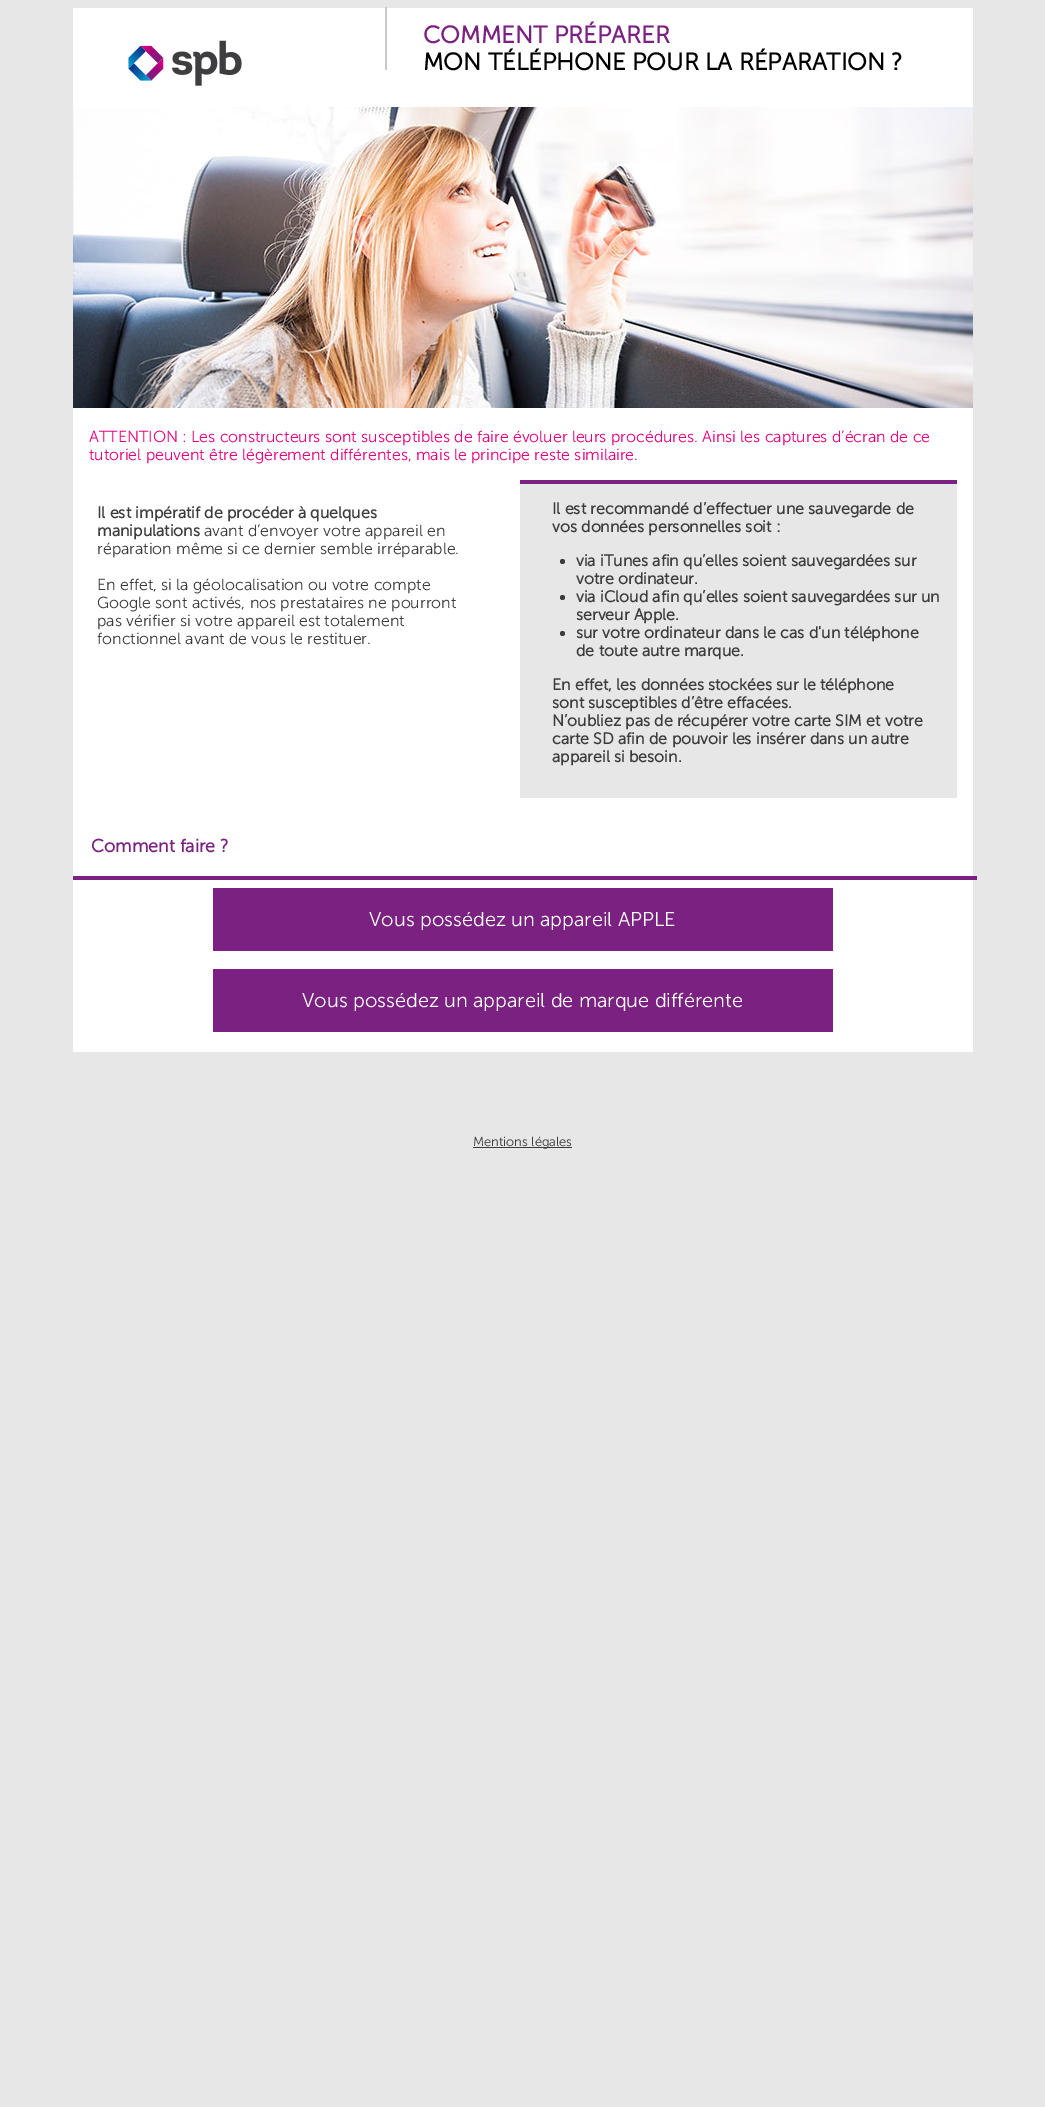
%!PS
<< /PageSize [1045 2107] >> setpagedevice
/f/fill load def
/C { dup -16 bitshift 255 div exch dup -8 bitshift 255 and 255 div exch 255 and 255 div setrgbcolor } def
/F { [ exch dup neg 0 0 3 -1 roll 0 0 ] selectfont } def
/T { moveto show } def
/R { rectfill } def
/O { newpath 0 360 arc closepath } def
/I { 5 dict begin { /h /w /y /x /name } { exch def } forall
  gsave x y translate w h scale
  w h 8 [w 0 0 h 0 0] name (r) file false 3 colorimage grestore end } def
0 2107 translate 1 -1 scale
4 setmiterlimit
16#E7E7E7 C
0 0 1045 2107 R
16#FFFFFF C
73 8 900 1044 R
(1.rgb) 128 40 114 46 I
16#C9C9C9 C
385 7 2 63 R
/MuseoSans-Bold 24 F
16#7B2182 C
(COMMENT PRÉPARER) 423 43 T
16#000000 C
(MON TÉLÉPHONE POUR LA RÉPARATION ?) 423 70 T
(2.rgb) 73 107 900 301 I
/MuseoSans-Light 16 F
16#E6007E C
(ATTENTION : Les constructeurs sont susceptibles de faire évoluer leurs procédures. Ainsi les captures d’écran de ce) 89 442 T
(tutoriel peuvent être légèrement différentes, mais le principe reste similaire.) 89 460 T
/MuseoSans-Bold 16 F
16#3C3C3C C
(Il est impératif de procéder à quelques) 97 518 T
(manipulations) 97 536 T
/MuseoSans-Light 16 F
(avant d’envoyer votre appareil en) 204 536 T
(réparation même si ce dernier semble irréparable.) 97 554 T
(En effet, si la géolocalisation ou votre compte) 97 590 T
(Google sont activés, nos prestataires ne pourront) 97 608 T
(pas vérifier si votre appareil est totalement) 97 626 T
(fonctionnel avant de vous le restituer.) 97 644 T
16#E7E7E7 C
520 484 437 314 R
16#7B2182 C
520 480 437 4 R
/MuseoSans-Bold 16 F
16#3C3C3C C
(Il est recommandé d’effectuer une sauvegarde de) 552 514 T
(vos données personnelles soit :) 552 532 T
562.5 561.5 2.5 O f
(via iTunes afin qu’elles soient sauvegardées sur) 576 566 T
(votre ordinateur.) 576 584 T
562.5 597.5 2.5 O f
(via iCloud afin qu’elles soient sauvegardées sur un) 576 602 T
(serveur Apple.) 576 620 T
562.5 633.5 2.5 O f
(sur votre ordinateur dans le cas d'un téléphone) 576 638 T
(de toute autre marque.) 576 656 T
(En effet, les données stockées sur le téléphone) 552 690 T
(sont susceptibles d’être effacées.) 552 708 T
(N’oubliez pas de récupérer votre carte SIM et votre) 552 726 T
(carte SD afin de pouvoir les insérer dans un autre) 552 744 T
(appareil si besoin.) 552 762 T
/MuseoSans-Bold 18 F
16#7B2182 C
(Comment faire ?) 91 852 T
73 876 904 4 R
213 888 620 63 R
/MuseoSans-Light 20 F
16#FFFFFF C
(Vous possédez un appareil APPLE) 369 926 T
16#7B2182 C
213 969 620 63 R
16#FFFFFF C
(Vous possédez un appareil de marque différente) 302 1007 T
16#3C3C3C C
473 1147 99 1 R
/MuseoSans-Light 13 F
(Mentions légales) 473 1146 T
showpage
